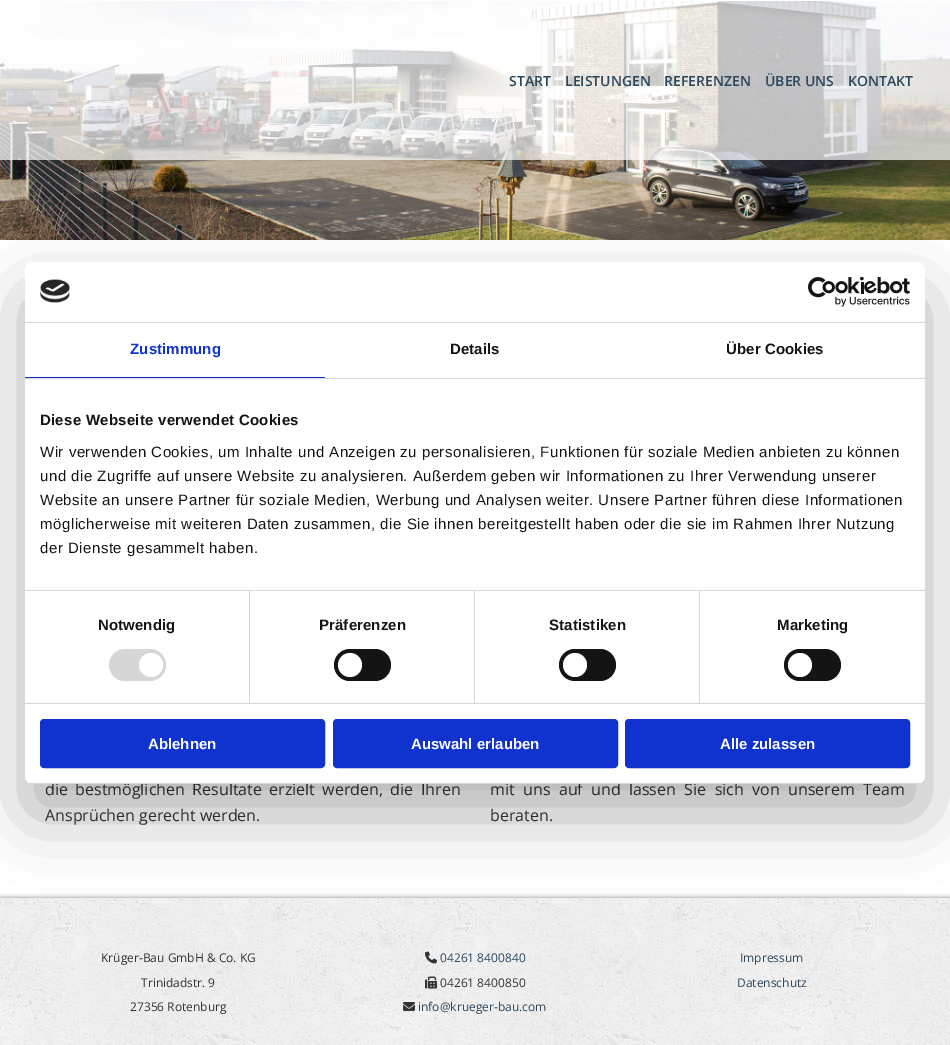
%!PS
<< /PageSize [950 1045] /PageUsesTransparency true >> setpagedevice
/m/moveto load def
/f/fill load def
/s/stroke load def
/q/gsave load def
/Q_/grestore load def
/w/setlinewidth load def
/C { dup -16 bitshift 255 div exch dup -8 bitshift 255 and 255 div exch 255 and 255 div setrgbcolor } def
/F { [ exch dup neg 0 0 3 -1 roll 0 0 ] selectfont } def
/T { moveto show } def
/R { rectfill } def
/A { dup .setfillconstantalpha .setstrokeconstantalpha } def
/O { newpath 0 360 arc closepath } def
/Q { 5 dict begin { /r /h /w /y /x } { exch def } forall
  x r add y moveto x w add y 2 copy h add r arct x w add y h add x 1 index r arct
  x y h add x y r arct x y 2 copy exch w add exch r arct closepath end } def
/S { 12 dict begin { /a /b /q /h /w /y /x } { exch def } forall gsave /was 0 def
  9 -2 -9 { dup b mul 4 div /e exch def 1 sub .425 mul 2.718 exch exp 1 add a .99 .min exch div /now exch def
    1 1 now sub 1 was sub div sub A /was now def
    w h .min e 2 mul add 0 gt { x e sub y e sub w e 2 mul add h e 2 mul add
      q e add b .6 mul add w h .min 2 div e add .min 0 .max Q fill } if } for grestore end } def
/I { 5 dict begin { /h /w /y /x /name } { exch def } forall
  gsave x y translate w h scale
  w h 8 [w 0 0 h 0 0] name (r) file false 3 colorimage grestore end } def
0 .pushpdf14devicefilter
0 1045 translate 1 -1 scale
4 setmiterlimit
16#FFFFFF C
0 0 950 1045 R
(1.rgb) 0 1 950 239 I
0.7 A
0 1 950 159 R
/OpenSans-SemiBold 14 F
1 A
16#2A475E C
(START) 509 86 T
(LEISTUNGEN) 565 86 T
(REFERENZEN) 664 86 T
(ÜBER UNS) 765 86 T
(KONTAKT) 848 86 T
/OpenSans-Regular 16 F
16#333333 C
45 795 m 3.25 0 32 (die bestmöglichen Resultate erzielt werden, die Ihren) widthshow
(Ansprüchen gerecht werden.) 45 821 T
490 795 m 4.25 0 32 (mit uns auf und lassen Sie sich von unserem Team) widthshow
(beraten.) 490 821 T
16#878787 C
0 898 950 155 0 2.5 1 S
(2.rgb) 0 898 950 147 I
/OpenSans-Regular 12 F
16#333333 C
(Krüger-Bau GmbH & Co. KG) 101 962 T
(Trinidadstr. 9) 141 987 T
(27356 Rotenburg) 130 1011 T
(3.rgb) 425 951 12 13 I
16#2A475E C
(04261 8400840) 440 962 T
(4.rgb) 425 976 12 13 I
16#333333 C
(04261 8400850) 440 987 T
(5.rgb) 403 1002 12 9 I
16#2A475E C
(info@krueger-bau.com) 418 1011 T
(Impressum) 740 962 T
(Datenschutz) 737 987 T
16#000000 C
25 294 900 522 8 34 .3 S
16#FFFFFF C
25 262 900 522 8 Q f
16#D6D6D6 C
25 322 900 1 R
(6.rgb) 40 279 30 24 I
(7.rgb) 808 277 102 30 I
25 378 900 1 R
16#1032CF C
25 377 300 1 R
/LiberationSans-Bold 15 F
130 354 m .1 0 (Zustimmung) ashow
16#141414 C
450 354 m .1 0 (Details) ashow
726 354 m .1 0 (Über Cookies) ashow
16#D6D6D6 C
25 590 900 1 R
16#141414 C
40 425 m .25 0 (Diese Webseite verwendet Cookies) ashow
/LiberationSans-Regular 15 F
40 457 m .5 0 (Wir verwenden Cookies, um Inhalte und Anzeigen zu personalisieren, Funktionen für soziale Medien anbieten zu können) ashow
40 481 m .5 0 (und die Zugriffe auf unsere Website zu analysieren. Außerdem geben wir Informationen zu Ihrer Verwendung unserer) ashow
40 505 m .5 0 (Website an unsere Partner für soziale Medien, Werbung und Analysen weiter. Unsere Partner führen diese Informationen) ashow
40 529 m .5 0 (möglicherweise mit weiteren Daten zusammen, die Sie ihnen bereitgestellt haben oder die sie im Rahmen Ihrer Nutzung) ashow
40 553 m .5 0 (der Dienste gesammelt haben.) ashow
16#D6D6D6 C
25 703 900 1 R
249 591 1 112 R
/LiberationSans-Bold 15 F
16#141414 C
98 630 m .1 0 (Notwendig) ashow
16#D6D6D6 C
109 649 57 32 16 Q f
16#FFFFFF C
151 665 12 O f
16#D6D6D6 C
474 591 1 112 R
16#141414 C
319 630 m .1 0 (Präferenzen) ashow
334 649 57 32 16 Q f
16#FFFFFF C
350 665 12 O f
16#D6D6D6 C
699 591 1 112 R
16#141414 C
549 630 m .1 0 (Statistiken) ashow
559 649 57 32 16 Q f
16#FFFFFF C
575 665 12 O f
16#141414 C
777 630 m .1 0 (Marketing) ashow
784 649 57 32 16 Q f
16#FFFFFF C
800 665 12 O f
q
25 262 900 522 8 Q clip newpath
16#D6D6D6 C
25 783 900 1 R
Q_
16#1032CF C
41 720 283 47 3 Q q f Q_
2 w
s
16#FFFFFF C
(Ablehnen) 148 749 T
16#1032CF C
334 720 283 47 3 Q q f Q_
s
16#FFFFFF C
(Auswahl erlauben) 411 749 T
16#1032CF C
626 720 283 47 3 Q q f Q_
s
16#FFFFFF C
(Alle zulassen) 720 749 T
.poppdf14devicefilter showpage
